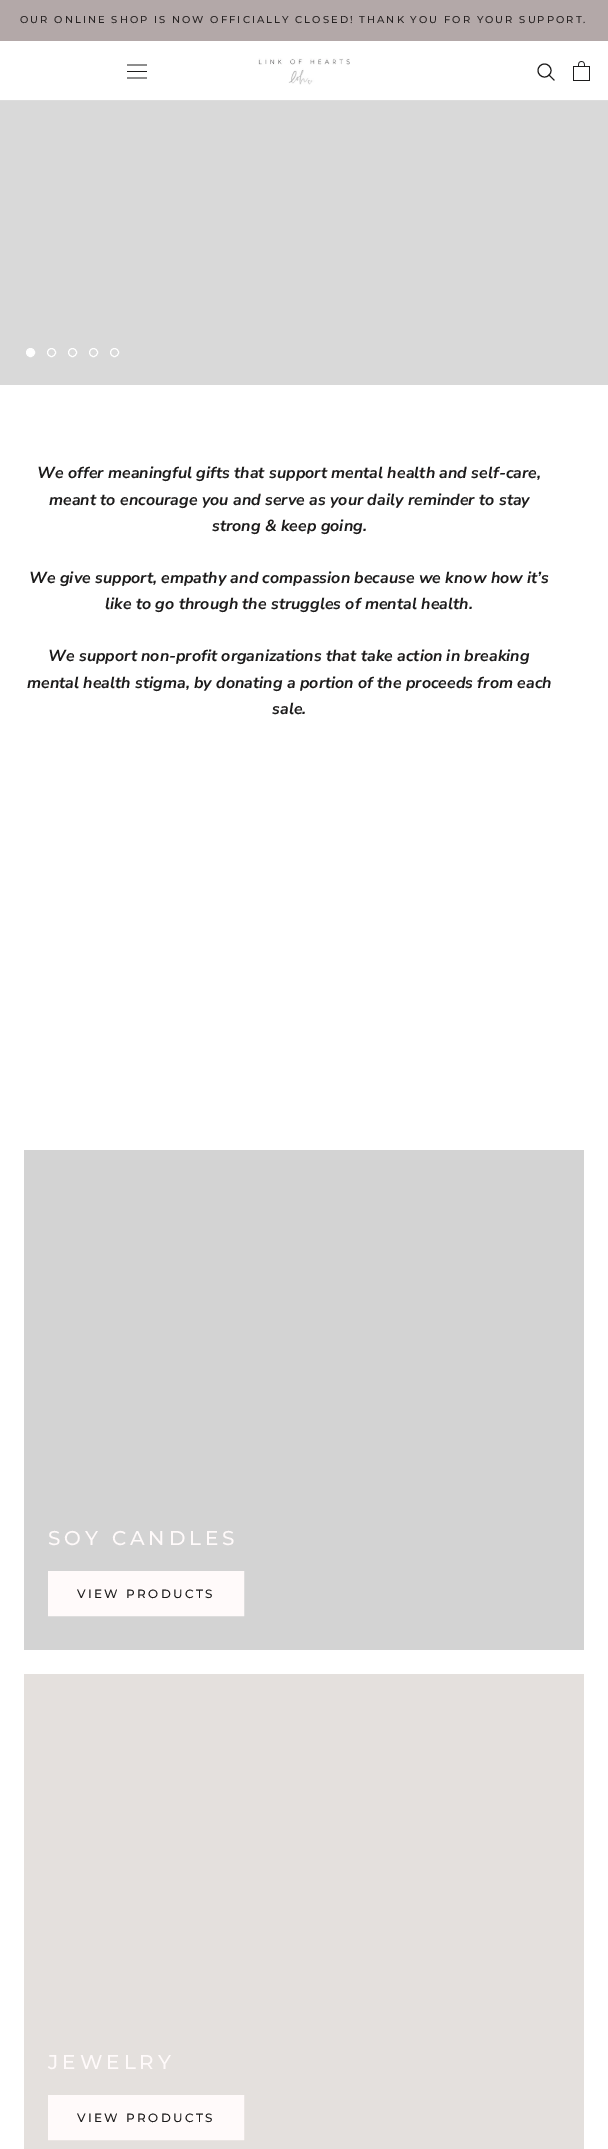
%!PS
<< /PageSize [608 2149] >> setpagedevice
/m/moveto load def
/l/rlineto load def
/f/fill load def
/s/stroke load def
/q/gsave load def
/Q_/grestore load def
/C { dup -16 bitshift 255 div exch dup -8 bitshift 255 and 255 div exch 255 and 255 div setrgbcolor } def
/F { [ exch dup neg 0 0 3 -1 roll 0 0 ] selectfont } def
/T { moveto show } def
/R { rectfill } def
/O { newpath 0 360 arc closepath } def
/I { 5 dict begin { /h /w /y /x /name } { exch def } forall
  gsave x y translate w h scale
  w h 8 [w 0 0 h 0 0] name (r) file false 3 colorimage grestore end } def
0 2149 translate 1 -1 scale
4 setmiterlimit
16#FFFFFF C
0 0 608 2149 R
16#B3A8A8 C
0 0 608 41 R
/Montserrat-Medium 10 F
16#262222 C
20 23 m 2 0 (OUR ONLINE SHOP IS NOW OFFICIALLY CLOSED! THANK YOU FOR YOUR SUPPORT.) ashow
16#DDDDDD C
0 100 608 1 R
(1.rgb) 127 64 20 15 I
(2.rgb) 258 58 92 27 I
16#1C1B1B C
2 setlinecap
554 80 m -5 -5 l s
0 setlinecap
544.5 70.5 6.5 O s
(3.rgb) 573 61 17 20 I
16#D9D9D9 C
0 101 608 284 R
16#FFFFFF C
30.5 352.5 4 O q f Q_
s
51.5 352.5 4 O s
72.5 352.5 4 O s
93.5 352.5 4 O s
114.5 352.5 4 O s
/NunitoSans-BoldItalic 16 F
16#1C1B1B C
(We offer meaningful gifts that support mental health and self-care,) 37 478 T
(meant to encourage you and serve as your daily reminder to stay) 49 505 T
(strong & keep going.) 212 531 T
(We give support, empathy and compassion because we know how it’s) 29 583 T
(like to go through the struggles of mental health.) 105 609 T
(We support non-profit organizations that take action in breaking) 48 661 T
(mental health stigma, by donating a portion of the proceeds from each) 27 688 T
(sale.) 272 714 T
16#D3D3D3 C
24 1150 560 500 R
/Montserrat-Medium 20 F
16#FFFAFA C
48 1545 m 4 0 (SOY CANDLES) ashow
48.5 1571.5 195 44 rectstroke
49 1572 194 43 R
/Montserrat-Medium 12 F
16#1C1B1B C
77 1598 m 2.4 0 (VIEW PRODUCTS) ashow
16#E4E0DD C
24 1674 560 475 R
/Montserrat-Medium 20 F
16#FFFAFA C
48 2069 m 4 0 (JEWELRY) ashow
48.5 2095.5 195 44 rectstroke
49 2096 194 43 R
/Montserrat-Medium 12 F
16#1C1B1B C
77 2122 m 2.4 0 (VIEW PRODUCTS) ashow
showpage
